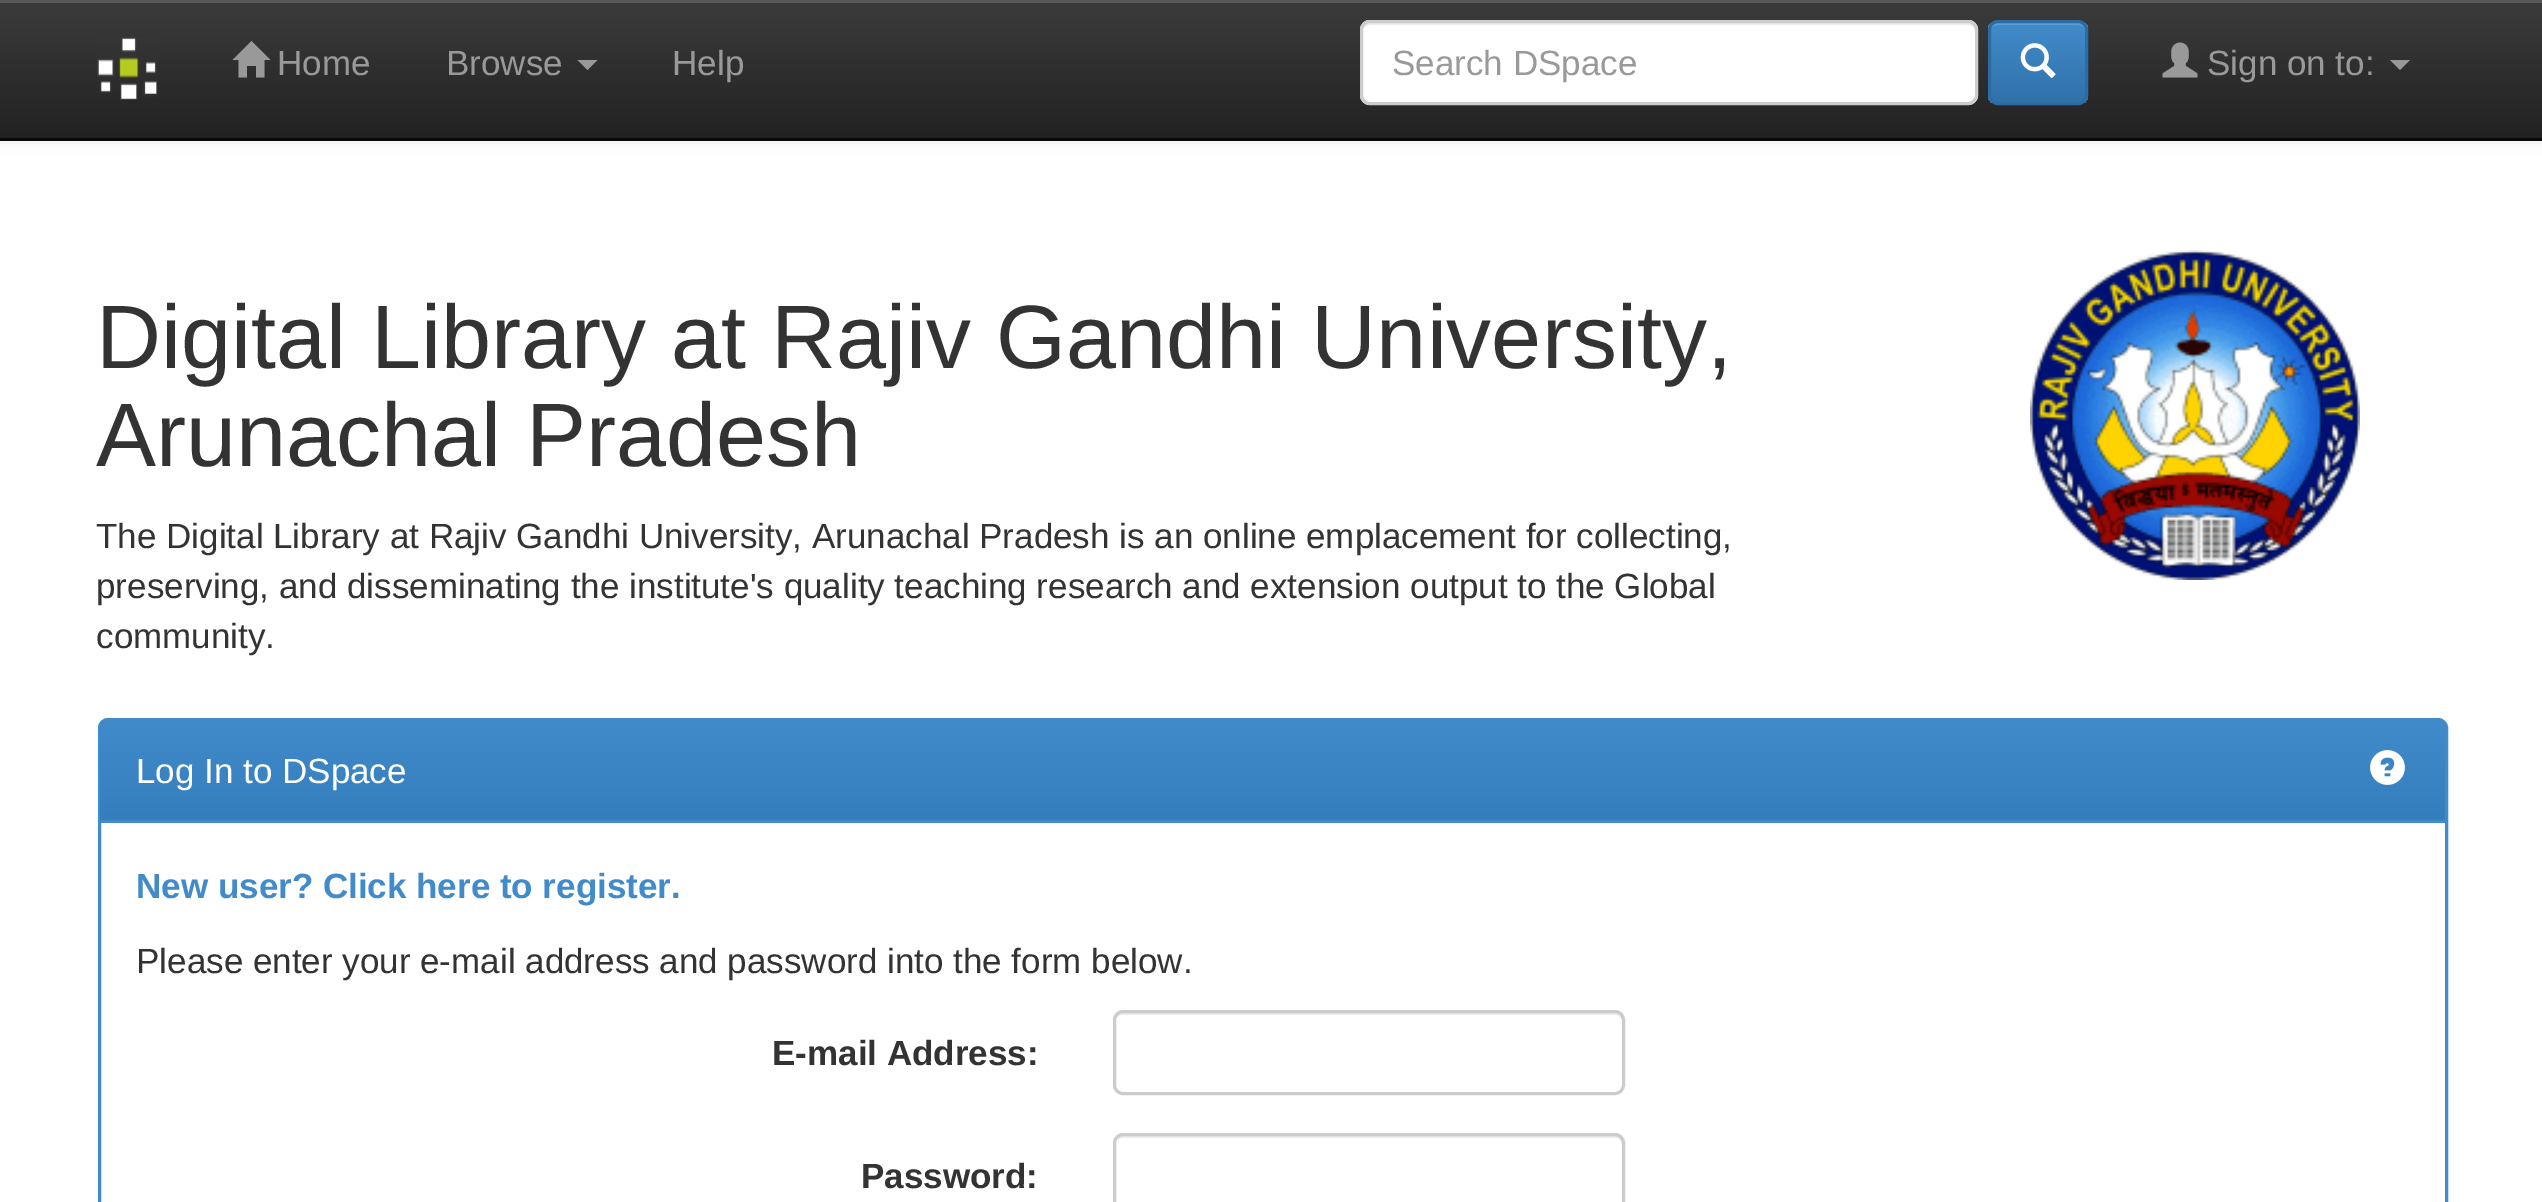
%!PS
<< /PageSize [2542 1202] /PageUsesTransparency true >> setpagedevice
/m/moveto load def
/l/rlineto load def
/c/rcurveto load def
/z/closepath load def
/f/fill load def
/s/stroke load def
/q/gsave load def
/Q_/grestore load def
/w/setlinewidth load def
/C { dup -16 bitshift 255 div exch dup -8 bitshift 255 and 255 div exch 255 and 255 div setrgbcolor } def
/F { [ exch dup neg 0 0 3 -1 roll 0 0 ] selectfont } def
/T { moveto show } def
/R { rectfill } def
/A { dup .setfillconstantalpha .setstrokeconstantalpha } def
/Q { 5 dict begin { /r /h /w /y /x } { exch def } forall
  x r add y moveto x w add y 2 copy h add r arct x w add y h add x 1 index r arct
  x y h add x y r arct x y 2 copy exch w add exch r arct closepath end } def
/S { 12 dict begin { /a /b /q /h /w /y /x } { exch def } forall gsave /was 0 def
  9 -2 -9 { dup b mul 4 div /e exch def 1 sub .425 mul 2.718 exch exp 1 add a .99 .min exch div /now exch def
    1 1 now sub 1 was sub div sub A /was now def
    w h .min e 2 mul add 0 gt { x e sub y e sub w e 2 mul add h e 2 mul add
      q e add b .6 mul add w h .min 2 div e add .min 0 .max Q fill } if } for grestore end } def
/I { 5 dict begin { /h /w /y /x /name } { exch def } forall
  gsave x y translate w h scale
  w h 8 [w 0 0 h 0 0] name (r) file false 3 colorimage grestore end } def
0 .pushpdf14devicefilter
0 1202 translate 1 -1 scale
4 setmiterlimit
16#FFFFFF C
0 0 2542 1202 R
16#000000 C
0 3 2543 140 0 6 .07 S
q 0 3 m 2542 0 l 0 135 l -2542 0 l z clip newpath
<< /ShadingType 2 /ColorSpace /DeviceRGB /Coords [1271 0 1271 138] /Extend [true true] /Function << /FunctionType 2 /Domain [0 1] /C0 [.235 .235 .235] /C1 [.133 .133 .133] /N 1 >> >> shfill Q_
16#595959 C
0 0 2542 3 R
16#080808 C
0 138 2542 3 R
(1.rgb) 97 37 61 63 I
16#999999 C
270.5 60 m -6 0 l 0 17.5 l -8.5 0 l 0 -11.5 l -9 0 l 0 11.5 l -8.5 0 l 0 -17.5 l -6 0 l 19 -19 l z f
/LiberationSans-Regular 35 F
(Home) 277 75 T
(Browse) 446 75 T
577.5 60 m 20 0 l -10 10 l z f
(Help) 672 75 T
16#FFFFFF C
1360 20 618 85 10 Q f
16#ECECEC C
1370 25 m 598 0 l 4 0 7 3 7 7 c 0 -1 l 0 -4 -4 -8 -8 -8 c -596 0 l -3 0 -6 2 -7 5 c 1 -2 4 -3 6 -3 c z f
16#CCCCCC C
3 w
1361.5 21.5 615 82 8.5 Q s
16#999999 C
(Search DSpace) 1392 75 T
q
1988 20 100 85 10 Q clip newpath
q 1988 23 m 100 0 l 0 80 l -100 0 l z clip newpath
<< /ShadingType 2 /ColorSpace /DeviceRGB /Coords [2038 22 2038 103] /Extend [true true] /Function << /FunctionType 2 /Domain [0 1] /C0 [.259 .545 .792] /C1 [.188 .443 .663] /N 1 >> >> shfill Q_
Q_
16#5E9CD1 C
1998 25 m 80 0 l 4 0 7 3 7 7 c 0 -12 -13 -9 -21 -9 c -53 0 l -8 0 -21 -3 -21 9 c 0 -4 3 -7 8 -7 c z f
16#2D6CA2 C
1989.5 21.5 97 82 8.5 Q s
(2.rgb) 2020 43 36 35 I
(3.rgb) 2162 42 36 36 I
16#999999 C
(Sign on to:) 2207 75 T
2390 60 m 20 0 l -10 10 l z f
/LiberationSans-Regular 90 F
16#333333 C
(Digital Library at Rajiv Gandhi University,) 96 368 T
(Arunachal Pradesh) 96 466 T
/LiberationSans-Regular 35 F
(The Digital Library at Rajiv Gandhi University, Arunachal Pradesh is an online emplacement for collecting,) 96 548 T
(preserving, and disseminating the institute's quality teaching research and extension output to the Global) 96 598 T
(community.) 96 648 T
(4.rgb) 2030 250 330 330 I
16#000000 C
98 720 2350 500 10 2.5 .05 S
16#FFFFFF C
99.5 719.5 2347 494 8.5 Q q f Q_
16#428BCA C
s
108 720 m 2329 0 l 4.5 0 8 3.5 8 8 c 0 95 l -2345 0 l 0 -95 l 0 -4.5 3.5 -8 8 -8 c z f
q 108 720 m 2329 0 l 4.5 0 8 3.5 8 8 c 0 92 l -2345 0 l 0 -92 l 0 -4.5 3.5 -8 8 -8 c z clip newpath
<< /ShadingType 2 /ColorSpace /DeviceRGB /Coords [1273 720 1273 820] /Extend [true true] /Function << /FunctionType 2 /Domain [0 1] /C0 [.259 .545 .792] /C1 [.208 .494 .741] /N 1 >> >> shfill Q_
16#FFFFFF C
(Log In to DSpace) 136 783 T
(5.rgb) 2370 750 35 35 I
/LiberationSans-Bold 35 F
16#428BCA C
(New user? Click here to register.) 136 898 T
/LiberationSans-Regular 35 F
16#333333 C
(Please enter your e-mail address and password into the form below.) 136 973 T
/LiberationSans-Bold 35 F
(E-mail Address:) 772 1065 T
16#ECECEC C
1122 1015 m 493 0 l 4 0 7 3 7 7 c 0 67 l 1 -1 1 -3 1 -4 c 0 -64 l 0 -4 -4 -8 -8 -8 c -492 0 l -4 0 -8 4 -8 8 c 0 1 l 0 -4 3 -7 7 -7 c z f
16#CCCCCC C
1114.5 1011.5 509 82 8.5 Q s
16#333333 C
(Password:) 861 1188 T
16#ECECEC C
1122 1138 m 493 0 l 4 0 7 3 7 7 c 0 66 l 1 -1 1 -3 1 -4 c 0 -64 l 0 -4 -4 -8 -8 -8 c -492 0 l -4 0 -8 4 -8 8 c 0 2 l 0 -4 3 -7 7 -7 c z f
16#CCCCCC C
1114.5 1134.5 509 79 8.5 Q s
.poppdf14devicefilter showpage
